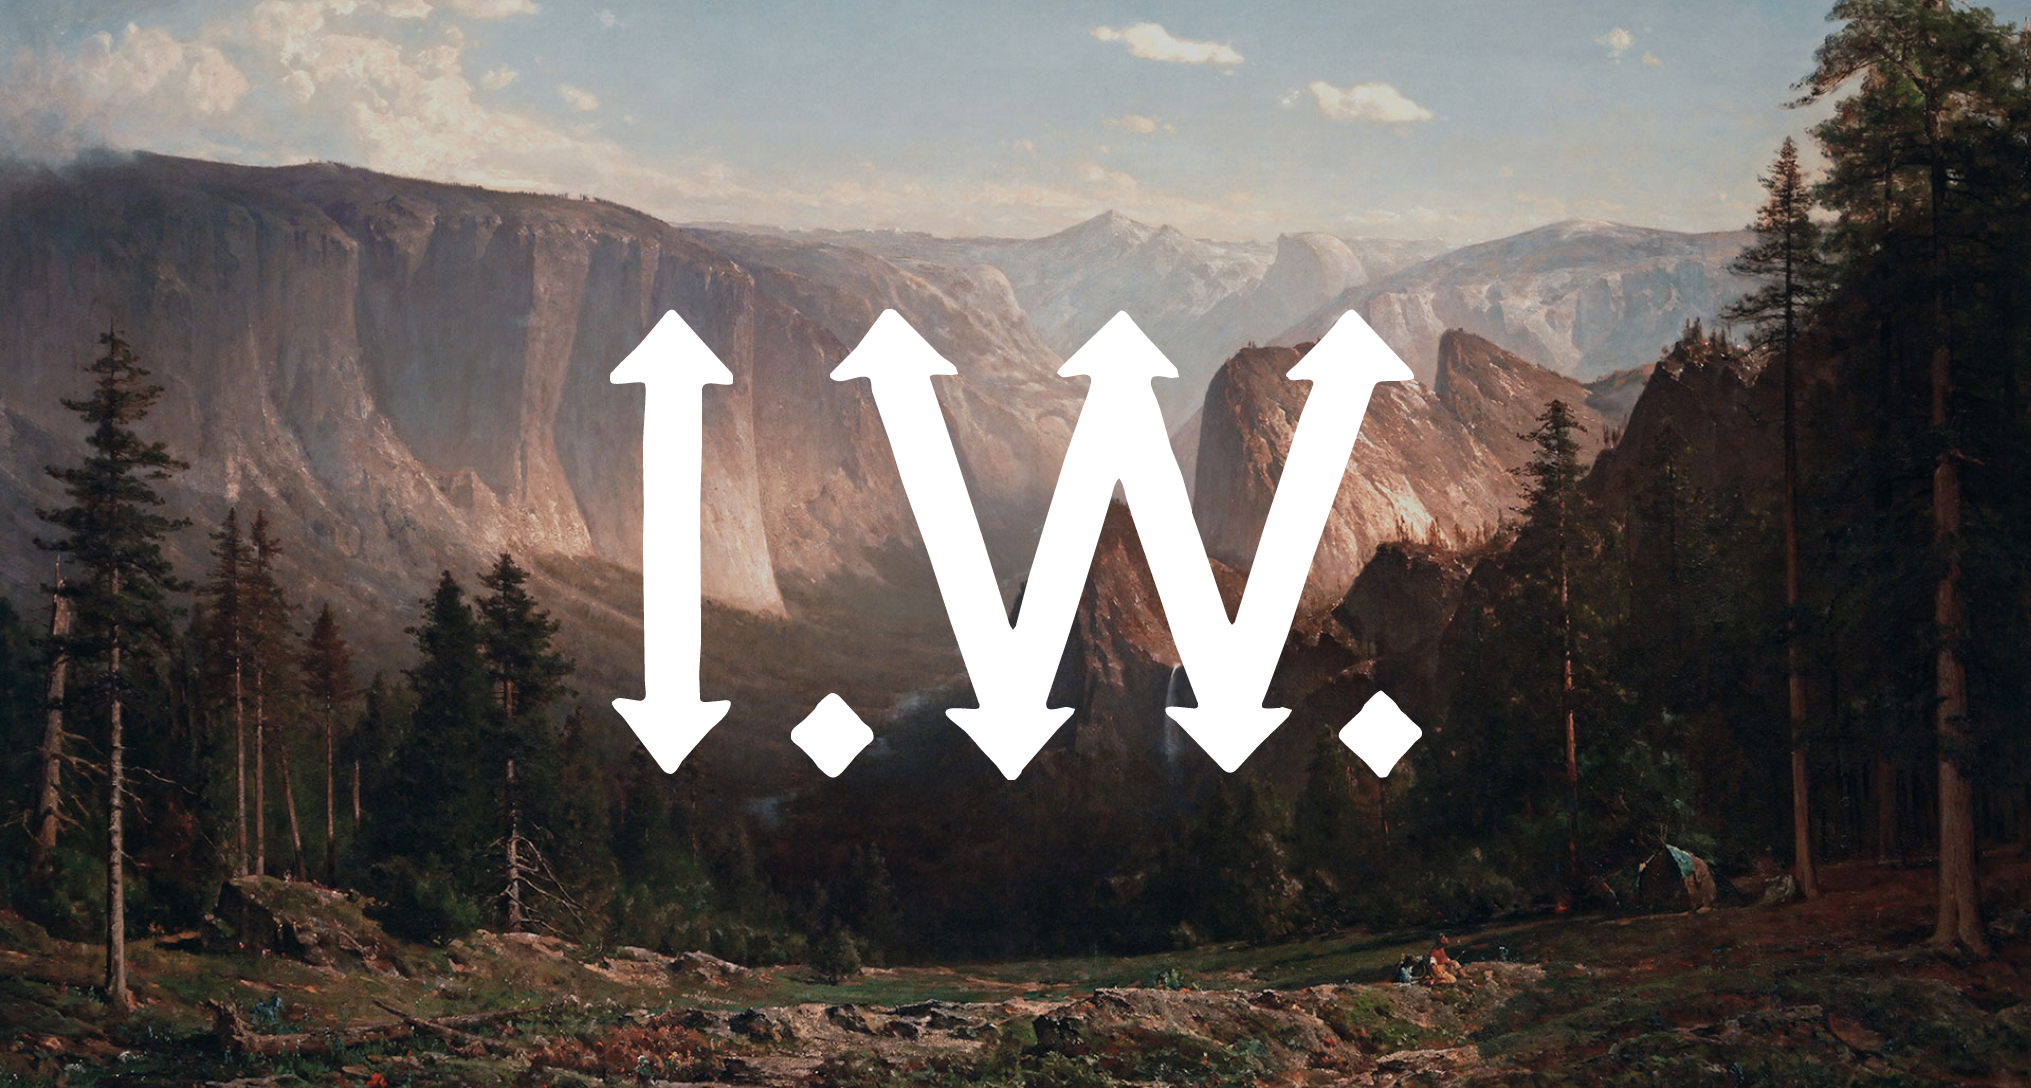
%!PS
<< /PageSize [2031 1088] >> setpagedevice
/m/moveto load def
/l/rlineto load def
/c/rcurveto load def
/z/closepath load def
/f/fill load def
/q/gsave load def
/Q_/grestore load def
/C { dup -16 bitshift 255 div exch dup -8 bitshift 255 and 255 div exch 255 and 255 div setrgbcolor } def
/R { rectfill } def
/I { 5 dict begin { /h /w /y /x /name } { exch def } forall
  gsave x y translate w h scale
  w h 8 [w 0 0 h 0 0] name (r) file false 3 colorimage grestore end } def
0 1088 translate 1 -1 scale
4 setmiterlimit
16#FFFFFF C
0 0 2031 1088 R
(1.rgb) 0 0 2031 1088 I
q
610 309 813 471 rectclip
896 311 m -2 -1 -3 -2 -6 -2 c -6 0 -6 2 -10 7 c -23 31 l -27 27 l 0 3 l 2 2 5 4 9 4 c 7 1 26 -9 31 -2 c 2 3 1 10 3 15 c 17 48 l 12 39 l 23 63 l 5 14 l 20 62 l 29 83 l 1 1 1 4 0 5 c -3 4 -37 -5 -33 6 c 1 4 16 14 20 18 c 10 11 l 6 8 14 15 21 23 c 3 4 9 13 13 15 c 1 0 3 0 4 -1 c 3 -1 5 -5 7 -7 c 1 -3 l 35 -40 l 16 -16 l 2 -5 l -8 -2 l -4 0 -17 5 -20 1 c -1 -2 -1 -4 -1 -5 c 16 -48 l 14 -41 26 -83 39 -124 c 10 -33 l 2 -7 3 -15 8 -20 c 4 4 6 14 7 19 c 6 19 l 30 87 l 13 40 l 23 60 l 2 8 -6 5 -10 5 c -10 -1 l -4 0 -15 -2 -12 5 c 1 4 8 7 11 10 c 40 41 l 5 5 11 14 19 7 c 23 -25 l 29 -28 l 4 -7 l -10 -3 l -2 1 l -4 0 -17 2 -18 -1 c 0 -4 l 5 -12 l 21 -57 l 25 -76 l 35 -97 l 23 -66 l 1 -3 2 -7 4 -10 c 2 -4 7 -4 12 -4 c 4 0 25 0 27 -3 c 0 -2 0 -3 -1 -4 c -2 -5 -7 -9 -11 -13 c -47 -50 l -1 -1 -3 -2 -5 -1 c -6 2 -13 12 -16 16 c -12 13 l -26 26 l -2 2 -8 6 -10 10 c 0 1 1 2 2 2 c 1 2 2 3 4 3 c 5 1 25 -5 21 6 c -12 29 l -18 56 l -18 54 l -30 97 l -3 3 l -4 -4 -5 -9 -7 -15 c -24 -71 l -9 -26 l 0 -2 l -9 -32 l -3 -10 -8 -20 -12 -31 c -11 -39 l -4 -11 l -2 -5 -8 -15 -4 -20 c 2 -4 15 -1 19 0 c 8 -1 l -2 -8 l -30 -32 l -15 -17 l -2 -3 -5 -8 -9 -9 c -1 -1 -3 0 -4 1 c -59 56 l -3 5 l 2 1 4 4 6 4 c 7 1 25 -7 28 1 c 2 5 -7 26 -9 32 c -17 48 l -36 118 l -13 50 l -3 4 l -4 -5 -4 -7 -6 -14 c -25 -80 l -13 -40 -26 -79 -39 -119 c -13 -38 l 0 -1 0 -2 0 -3 c 3 -3 18 -1 22 -1 c 6 -1 l -2 -6 l -3 -5 -12 -9 -16 -13 c z f
Q_
676 312 m -5 -6 -10 1 -13 5 c -22 26 l -8 9 -18 17 -26 26 c -4 4 l -1 2 -2 8 1 10 c 6 3 32 -4 33 1 c 1 6 l -1 20 l -1 15 -2 30 -2 44 c 1 55 l -1 33 l 2 140 l 0 4 2 13 0 16 c -1 2 -3 3 -5 3 c -20 -3 l -2 0 -4 1 -5 2 c -3 2 l 0 2 l 3 5 l 4 4 l 4 3 7 8 10 12 c 34 45 l 3 3 7 5 10 3 c 4 -2 7 -9 9 -12 c 26 -29 l 6 -7 15 -12 20 -21 c 1 -2 l 5 -10 -2 -9 -9 -8 c -11 1 l -4 0 -8 1 -9 -3 c -1 -25 l 2 -33 l -1 -134 l 2 -67 l 0 -42 l 0 -4 -1 -9 1 -12 c 4 -7 25 2 30 -3 c 0 -11 0 -8 -8 -17 c z f
841 698 m 11 12 l 5 5 l 4 5 l 4 4 l 4 3 l 2 2 4 5 4 7 c 2 7 -3 8 -7 12 c -4 4 l -7 7 l -5 6 l -6 7 l -3 3 -8 9 -13 7 c -4 -1 -8 -6 -11 -8 c -3 -3 -5 -7 -8 -10 c -11 -11 l -3 -3 -8 -5 -10 -10 c 0 -2 0 -5 1 -7 c 3 -5 11 -9 15 -14 c 8 -8 l 3 -5 l 2 -2 10 -10 14 -11 c 3 0 6 2 9 5 c z f
1382 691 m 5 5 10 8 14 13 c 5 7 l 5 4 l 7 7 l 4 4 9 6 9 12 c 0 3 -5 6 -7 8 c -7 8 l -6 6 -13 13 -17 20 c -2 3 -3 6 -5 7 c -2 0 -5 1 -7 0 c -11 -12 l -4 -5 -28 -24 -29 -28 c -1 -5 4 -9 7 -12 c 15 -14 l 4 -7 l 6 -6 l 3 -3 l 4 -3 l 1 0 2 -2 4 -1 c z f
showpage
